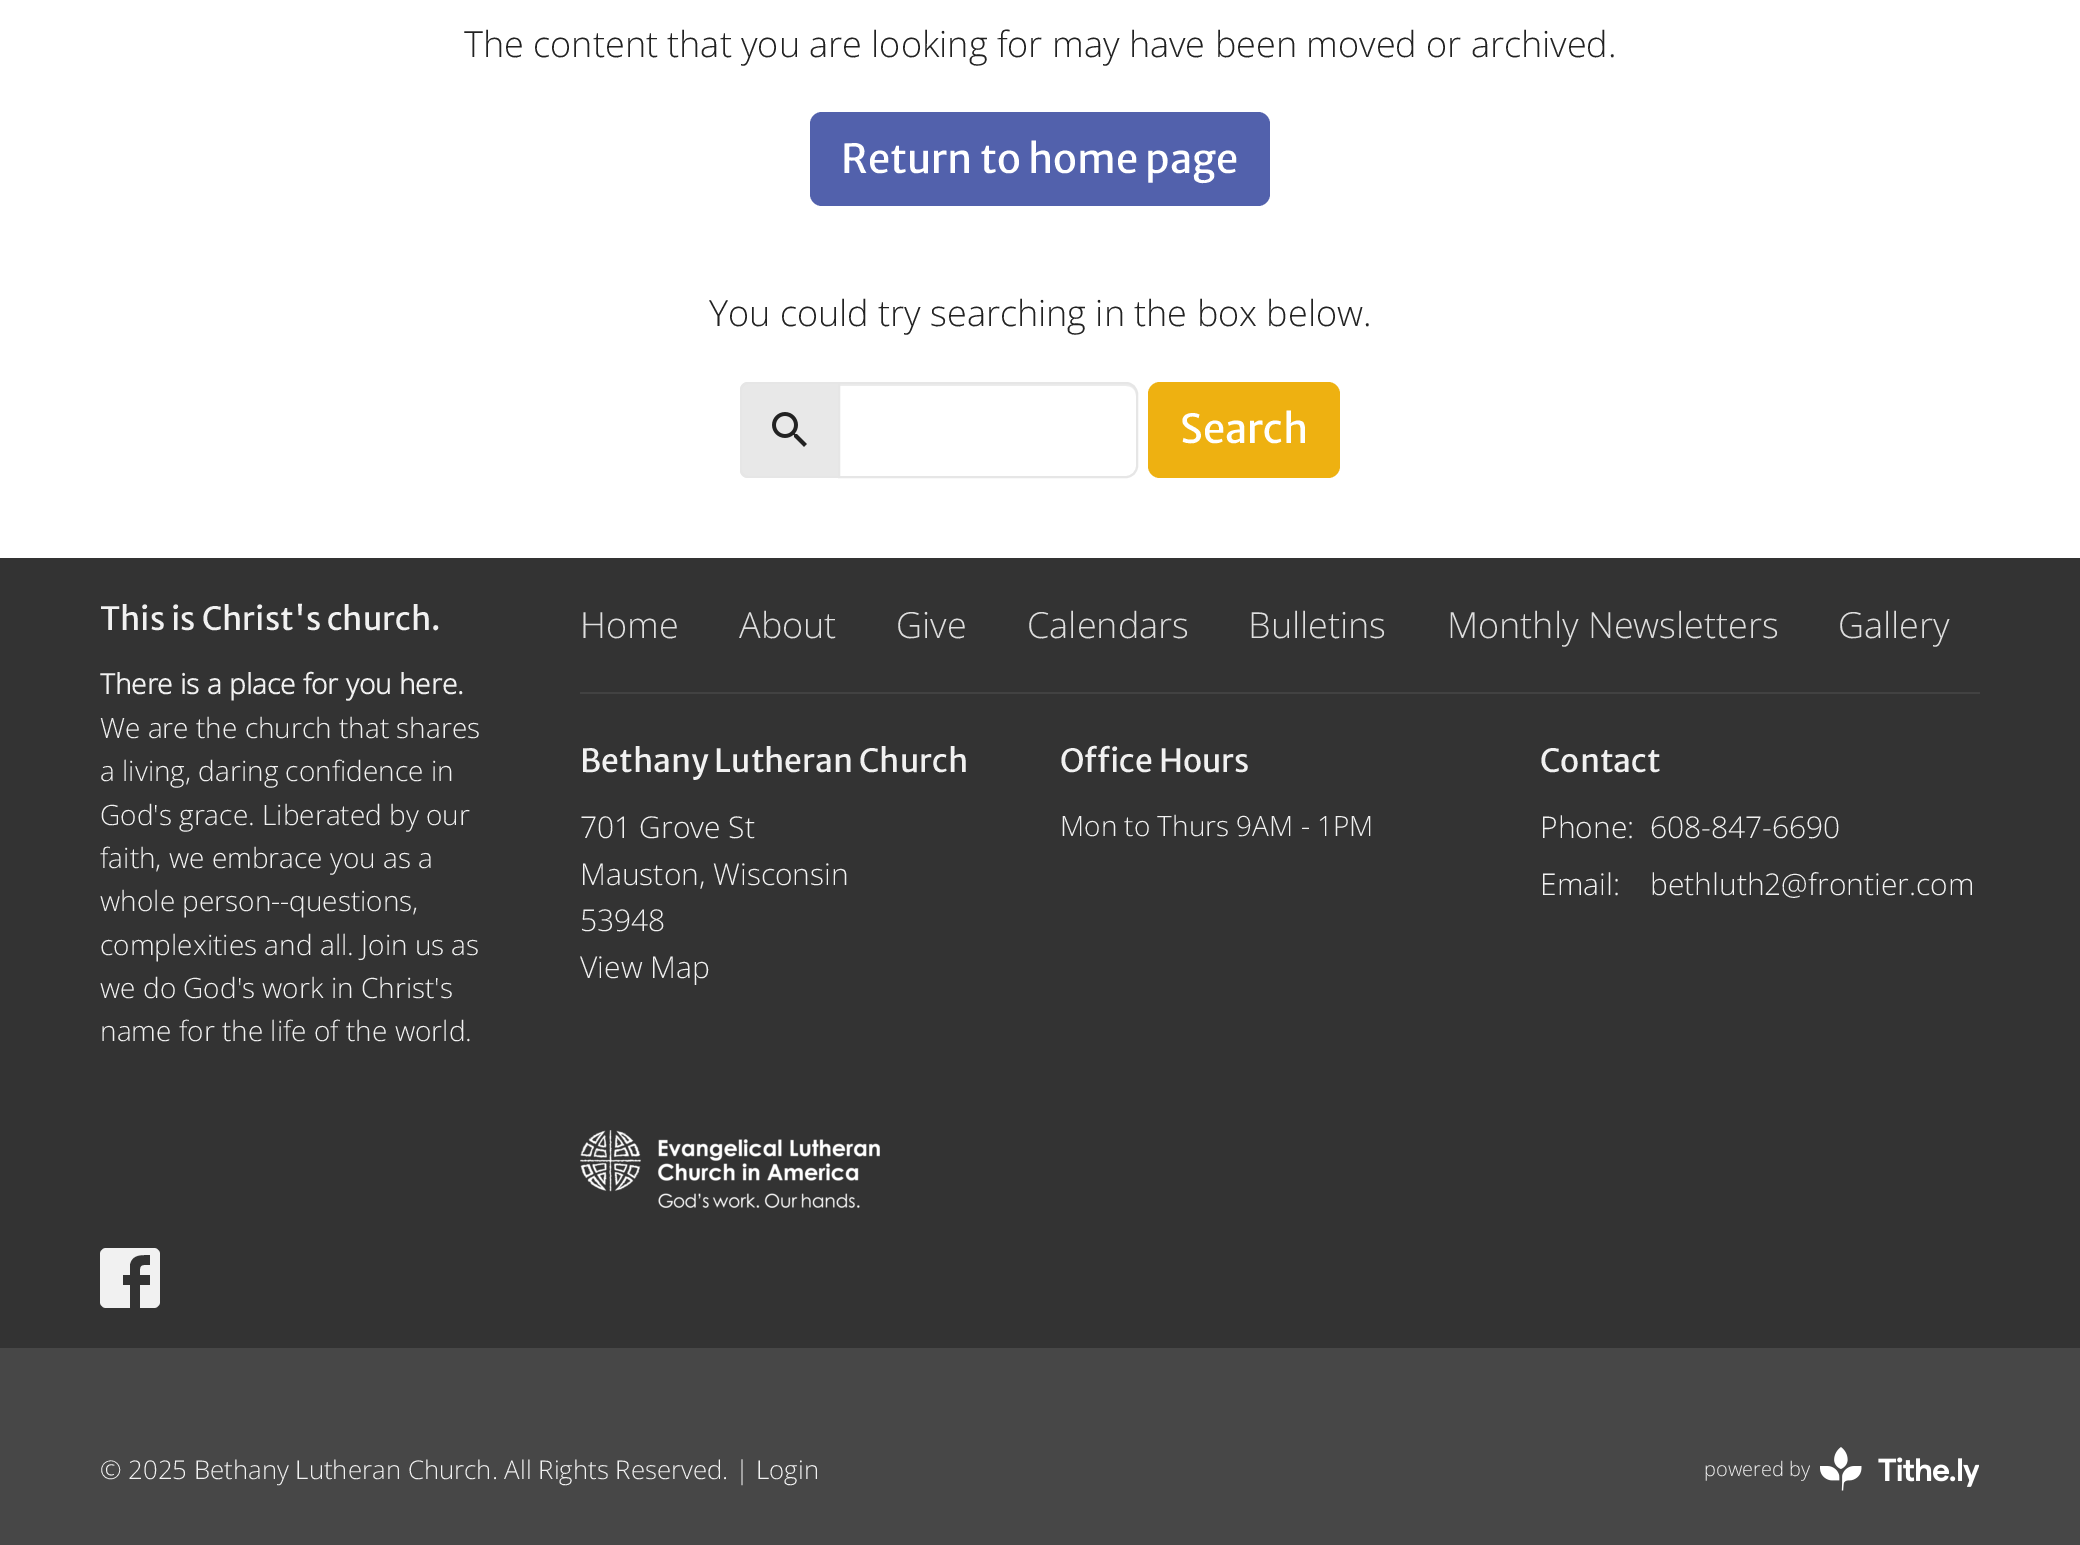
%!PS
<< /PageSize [2080 1545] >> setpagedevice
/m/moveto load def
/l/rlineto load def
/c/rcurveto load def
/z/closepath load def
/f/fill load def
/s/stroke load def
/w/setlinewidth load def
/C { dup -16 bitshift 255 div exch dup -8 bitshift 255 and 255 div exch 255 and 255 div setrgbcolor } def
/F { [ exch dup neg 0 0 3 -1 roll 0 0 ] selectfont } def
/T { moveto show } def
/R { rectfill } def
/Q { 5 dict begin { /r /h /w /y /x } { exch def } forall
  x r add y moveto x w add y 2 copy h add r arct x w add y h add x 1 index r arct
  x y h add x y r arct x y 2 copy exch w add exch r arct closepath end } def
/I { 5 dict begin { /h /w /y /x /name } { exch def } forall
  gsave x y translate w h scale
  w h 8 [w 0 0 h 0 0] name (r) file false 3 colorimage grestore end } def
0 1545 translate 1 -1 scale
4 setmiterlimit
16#FFFFFF C
0 0 2080 1545 R
/OpenSans-Light 36 F
16#222222 C
(The content that you are looking for may have been moved or archived.) 464 57 T
16#5261AC C
810 112 460 94 12 Q f
/MerriweatherSans-Regular 40 F
16#FFFFFF C
(Return to home page) 841 173 T
/OpenSans-Light 36 F
16#222222 C
(You could try searching in the box below.) 709 326 T
16#E8E8E8 C
748 382 m 90 0 l 0 96 l -90 0 l -4.5 0 -8 -3.5 -8 -8 c 0 -80 l 0 -4.5 3.5 -8 8 -8 c z f
16#E6E6E6 C
748 382 m 90 0 l 0 96 l -90 0 l -4 0 -8 -4 -8 -8 c 0 -80 l 0 -4 4 -8 8 -8 c z 748 384 m 90 0 l 0 92 l -90 0 l -3 0 -6 -3 -6 -6 c 0 -80 l 0 -3 3 -6 6 -6 c z eofill
(1.rgb) 772 412 35 35 I
16#ECECEC C
840 386 m 286 0 l 6 0 10 4 10 10 c 0 -2 l 0 -6 -4 -10 -10 -10 c -286 0 l z f
16#E6E6E6 C
2 w
839 383 m 287 0 l 6 0 11 5 11 11 c 0 72 l 0 6 -5 11 -11 11 c -287 0 l z s
16#EEB111 C
1148 382 192 96 12 Q f
/MerriweatherSans-Regular 40 F
16#FFFFFF C
(Search) 1180 443 T
16#333333 C
0 558 2080 790 R
/MerriweatherSans-Regular 32 F
16#F1F1F1 C
(This is Christ's church.) 100 630 T
/OpenSans-Bold 28 F
(There is a place for you here.) 100 694 T
/OpenSans-Light 28 F
(We are the church that shares) 100 738 T
(a living, daring confidence in) 100 781 T
(God's grace. Liberated by our) 100 825 T
(faith, we embrace you as a) 100 868 T
(whole person--questions,) 100 911 T
(complexities and all. Join us as) 100 955 T
(we do God's work in Christ's) 100 998 T
(name for the life of the world.) 100 1041 T
/OpenSans-Light 36 F
16#DEDEDE C
(Home) 580 638 T
(About) 739 638 T
(Give) 896 638 T
(Calendars) 1027 638 T
(Bulletins) 1248 638 T
(Monthly Newsletters) 1447 638 T
(Gallery) 1838 638 T
16#424242 C
580 692 1400 2 R
/MerriweatherSans-Regular 32 F
16#F1F1F1 C
(Bethany Lutheran Church) 580 772 T
/OpenSans-Light 30 F
(701 Grove St) 580 838 T
(Mauston, Wisconsin) 580 885 T
(53948) 580 931 T
(View Map) 580 978 T
/MerriweatherSans-Regular 32 F
(Office Hours) 1060 772 T
/OpenSans-Light 28 F
(Mon to Thurs 9AM - 1PM) 1060 836 T
/MerriweatherSans-Regular 32 F
(Contact) 1540 772 T
/OpenSans-Light 30 F
(Phone:) 1540 838 T
(608-847-6690) 1650 838 T
(Email:) 1540 895 T
(bethluth2@frontier.com) 1650 895 T
(2.rgb) 580 1130 300 78 I
150 1255 m 0 10 l -10 0 -10 0 -10 10 c 10 0 l 0 10 l -10 0 l 0 23 l 14 0 l 3 0 6 -3 6 -6 c 0 -48 l 0 -3 -3 -6 -6 -6 c -48 0 l -3 0 -6 3 -6 6 c 0 48 l 0 3 3 6 6 6 c 24 0 l 0 -23 l -7 0 l 0 -10 l 7 0 l 0 -11 l 2 -10 12 -9 20 -9 c z f
16#474747 C
0 1348 2080 197 R
/OpenSans-Light 25.8 F
16#F1F1F1 C
(© 2025 Bethany Lutheran Church. All Rights Reserved. |) 100 1479 T
(Login) 756 1479 T
/OpenSans-Light 20 F
(powered by) 1704 1476 T
(3.rgb) 1820 1447 159 44 I
showpage
